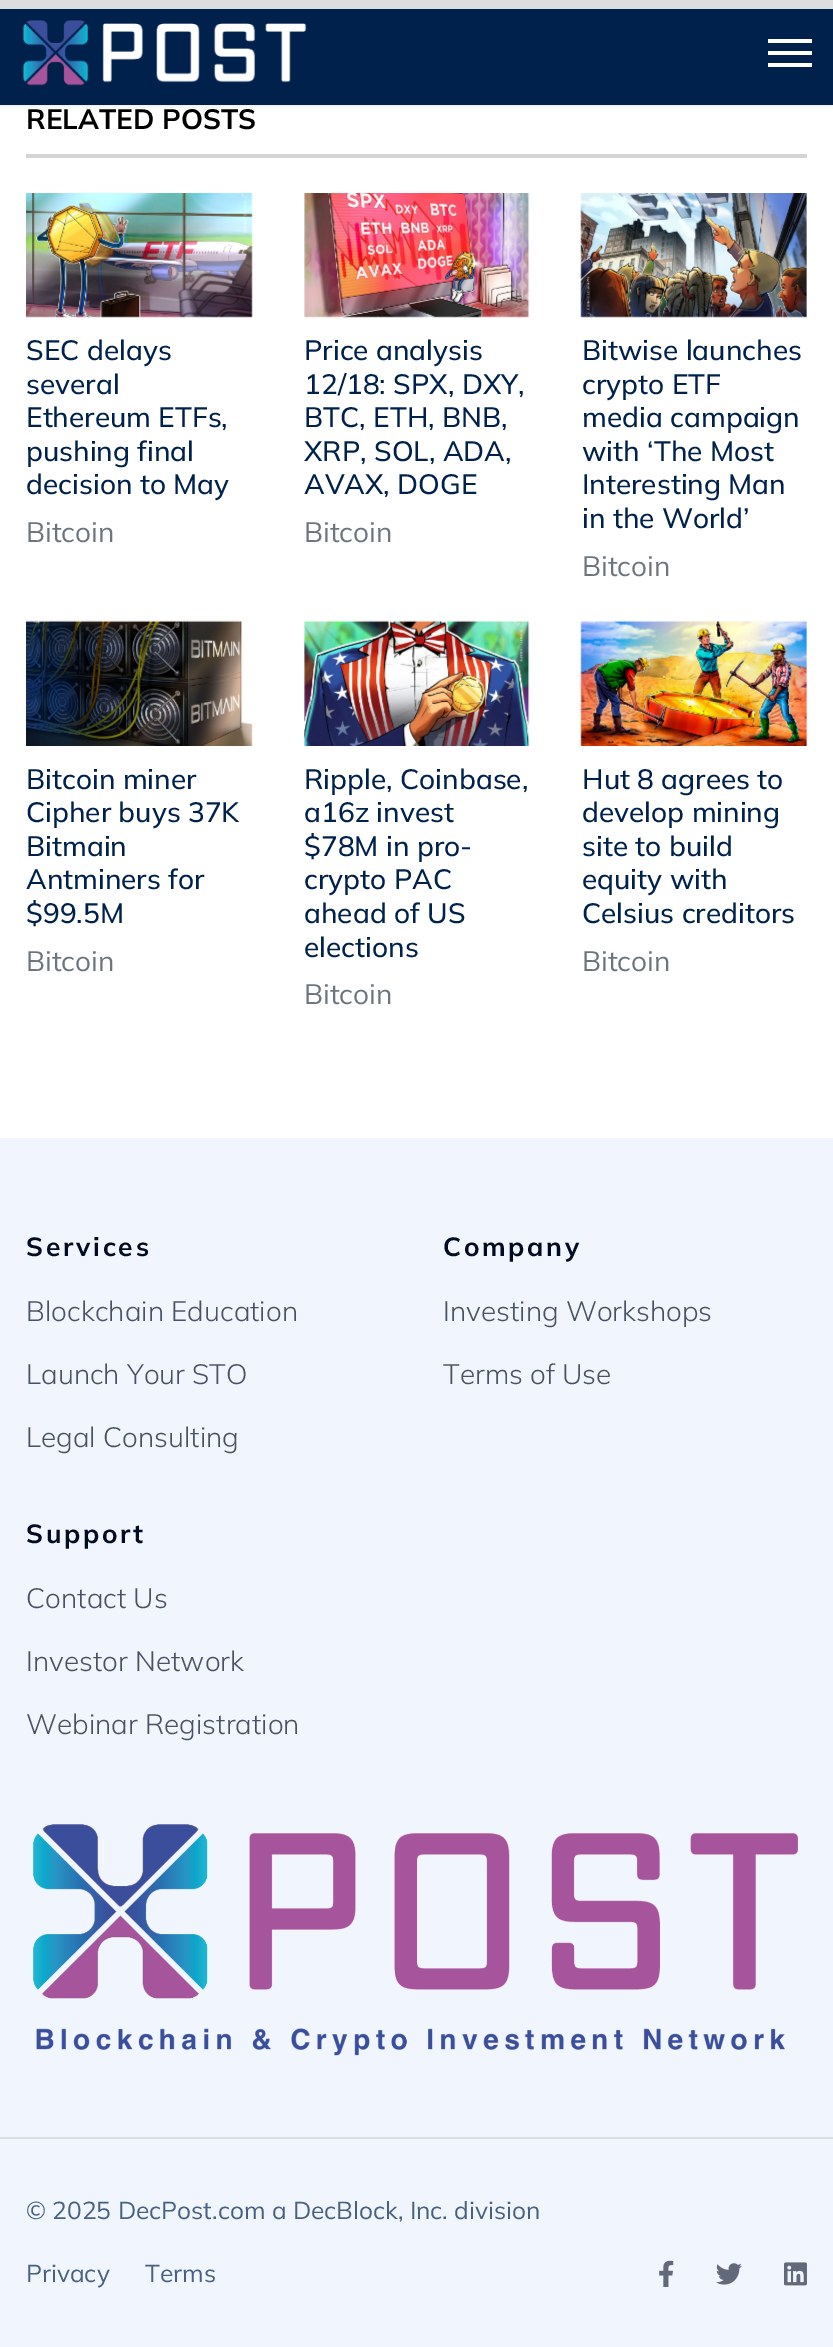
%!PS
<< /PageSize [833 2347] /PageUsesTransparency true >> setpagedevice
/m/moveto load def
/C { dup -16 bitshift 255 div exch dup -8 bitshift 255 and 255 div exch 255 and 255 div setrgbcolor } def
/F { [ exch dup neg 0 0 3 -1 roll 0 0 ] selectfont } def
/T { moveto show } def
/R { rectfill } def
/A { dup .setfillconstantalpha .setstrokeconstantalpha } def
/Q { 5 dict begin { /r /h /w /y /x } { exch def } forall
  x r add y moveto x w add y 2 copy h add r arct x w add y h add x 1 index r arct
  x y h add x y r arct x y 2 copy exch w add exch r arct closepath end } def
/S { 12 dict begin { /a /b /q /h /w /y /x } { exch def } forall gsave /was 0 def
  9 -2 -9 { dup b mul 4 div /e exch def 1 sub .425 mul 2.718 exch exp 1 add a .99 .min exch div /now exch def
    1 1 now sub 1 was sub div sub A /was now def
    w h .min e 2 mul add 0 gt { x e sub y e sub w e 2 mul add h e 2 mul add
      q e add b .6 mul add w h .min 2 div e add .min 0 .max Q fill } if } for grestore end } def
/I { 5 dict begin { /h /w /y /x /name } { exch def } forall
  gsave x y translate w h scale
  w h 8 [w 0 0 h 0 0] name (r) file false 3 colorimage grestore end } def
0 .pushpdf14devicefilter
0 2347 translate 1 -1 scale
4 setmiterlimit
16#FFFFFF C
0 0 833 2347 R
16#000000 C
0 0 833 105 0 3.5 .1 S
16#00214B C
0 9 833 96 R
(1.rgb) 23 20 284 66 I
16#FFFFFF C
768 39 44 4 R
768 51 44 4 R
768 63 44 4 R
16#DEDEDE C
0 0 833 9 R
16#D4D4D4 C
26 154 781 4 R
/Mulish-Bold 28 F
16#000000 C
(RELATED POSTS) 26 129 T
16#F9F9F9 C
26 193 226 124 R
(2.rgb) 26 193 227 125 I
/Mulish-Medium 28 F
16#00214B C
(SEC delays) 26 360 T
(several) 26 394 T
(Ethereum ETFs,) 26 427 T
(pushing final) 26 461 T
(decision to May) 26 494 T
/Mulish-Regular 28 F
16#6C757D C
(Bitcoin) 26 542 T
16#F9F9F9 C
305 193 224 124 R
(3.rgb) 304 193 226 125 I
/Mulish-Medium 28 F
16#00214B C
(Price analysis) 304 360 T
(12/18: SPX, DXY,) 304 394 T
(BTC, ETH, BNB,) 304 427 T
(XRP, SOL, ADA,) 304 461 T
(AVAX, DOGE) 304 494 T
/Mulish-Regular 28 F
16#6C757D C
(Bitcoin) 304 542 T
16#F9F9F9 C
581 193 226 124 R
(4.rgb) 580 193 227 125 I
/Mulish-Medium 28 F
16#00214B C
(Bitwise launches) 582 360 T
(crypto ETF) 582 394 T
(media campaign) 582 427 T
(with ‘The Most) 582 461 T
(Interesting Man) 582 494 T
(in the World’) 582 528 T
/Mulish-Regular 28 F
16#6C757D C
(Bitcoin) 582 576 T
16#F9F9F9 C
26 621 226 125 R
(5.rgb) 26 620 227 126 I
/Mulish-Medium 28 F
16#00214B C
(Bitcoin miner) 26 789 T
(Cipher buys 37K) 26 822 T
(Bitmain) 26 856 T
(Antminers for) 26 889 T
($99.5M) 26 923 T
/Mulish-Regular 28 F
16#6C757D C
(Bitcoin) 26 971 T
16#F9F9F9 C
305 621 224 125 R
(6.rgb) 304 620 226 126 I
/Mulish-Medium 28 F
16#00214B C
(Ripple, Coinbase,) 304 789 T
(a16z invest) 304 822 T
($78M in pro-) 304 856 T
(crypto PAC) 304 889 T
(ahead of US) 304 923 T
(elections) 304 957 T
/Mulish-Regular 28 F
16#6C757D C
(Bitcoin) 304 1004 T
16#F9F9F9 C
581 621 226 125 R
(7.rgb) 580 620 227 126 I
/Mulish-Medium 28 F
16#00214B C
(Hut 8 agrees to) 582 789 T
(develop mining) 582 822 T
(site to build) 582 856 T
(equity with) 582 889 T
(Celsius creditors) 582 923 T
/Mulish-Regular 28 F
16#6C757D C
(Bitcoin) 582 971 T
16#F0F5FE C
0 1138 833 999 R
/Mulish-Bold 26.25 F
16#010C23 C
26 1256 m 2.75 0 (Services) ashow
/Mulish-Light 28 F
16#495265 C
(Blockchain Education) 26 1321 T
(Launch Your STO) 26 1384 T
(Legal Consulting) 26 1447 T
/Mulish-Bold 26.25 F
16#010C23 C
443 1256 m 2.75 0 (Company) ashow
/Mulish-Light 28 F
16#495265 C
(Investing Workshops) 443 1321 T
(Terms of Use) 443 1384 T
/Mulish-Bold 26.25 F
16#010C23 C
26 1543 m 2.75 0 (Support) ashow
/Mulish-Light 28 F
16#495265 C
(Contact Us) 26 1608 T
(Investor Network) 26 1671 T
(Webinar Registration) 26 1734 T
(8.rgb) 33 1824 765 232 I
16#F0F5FE C
0 2139 833 208 R
16#D8DEE8 C
0 2137 833 2 R
/Mulish-Regular 24.5 F
16#486181 C
(© 2025 DecPost.com a DecBlock, Inc. division) 26 2219 T
(Privacy) 26 2282 T
(Terms) 145 2282 T
(9.rgb) 659 2260 15 27 I
(10.rgb) 716 2263 26 22 I
(11.rgb) 784 2262 23 24 I
.poppdf14devicefilter showpage
